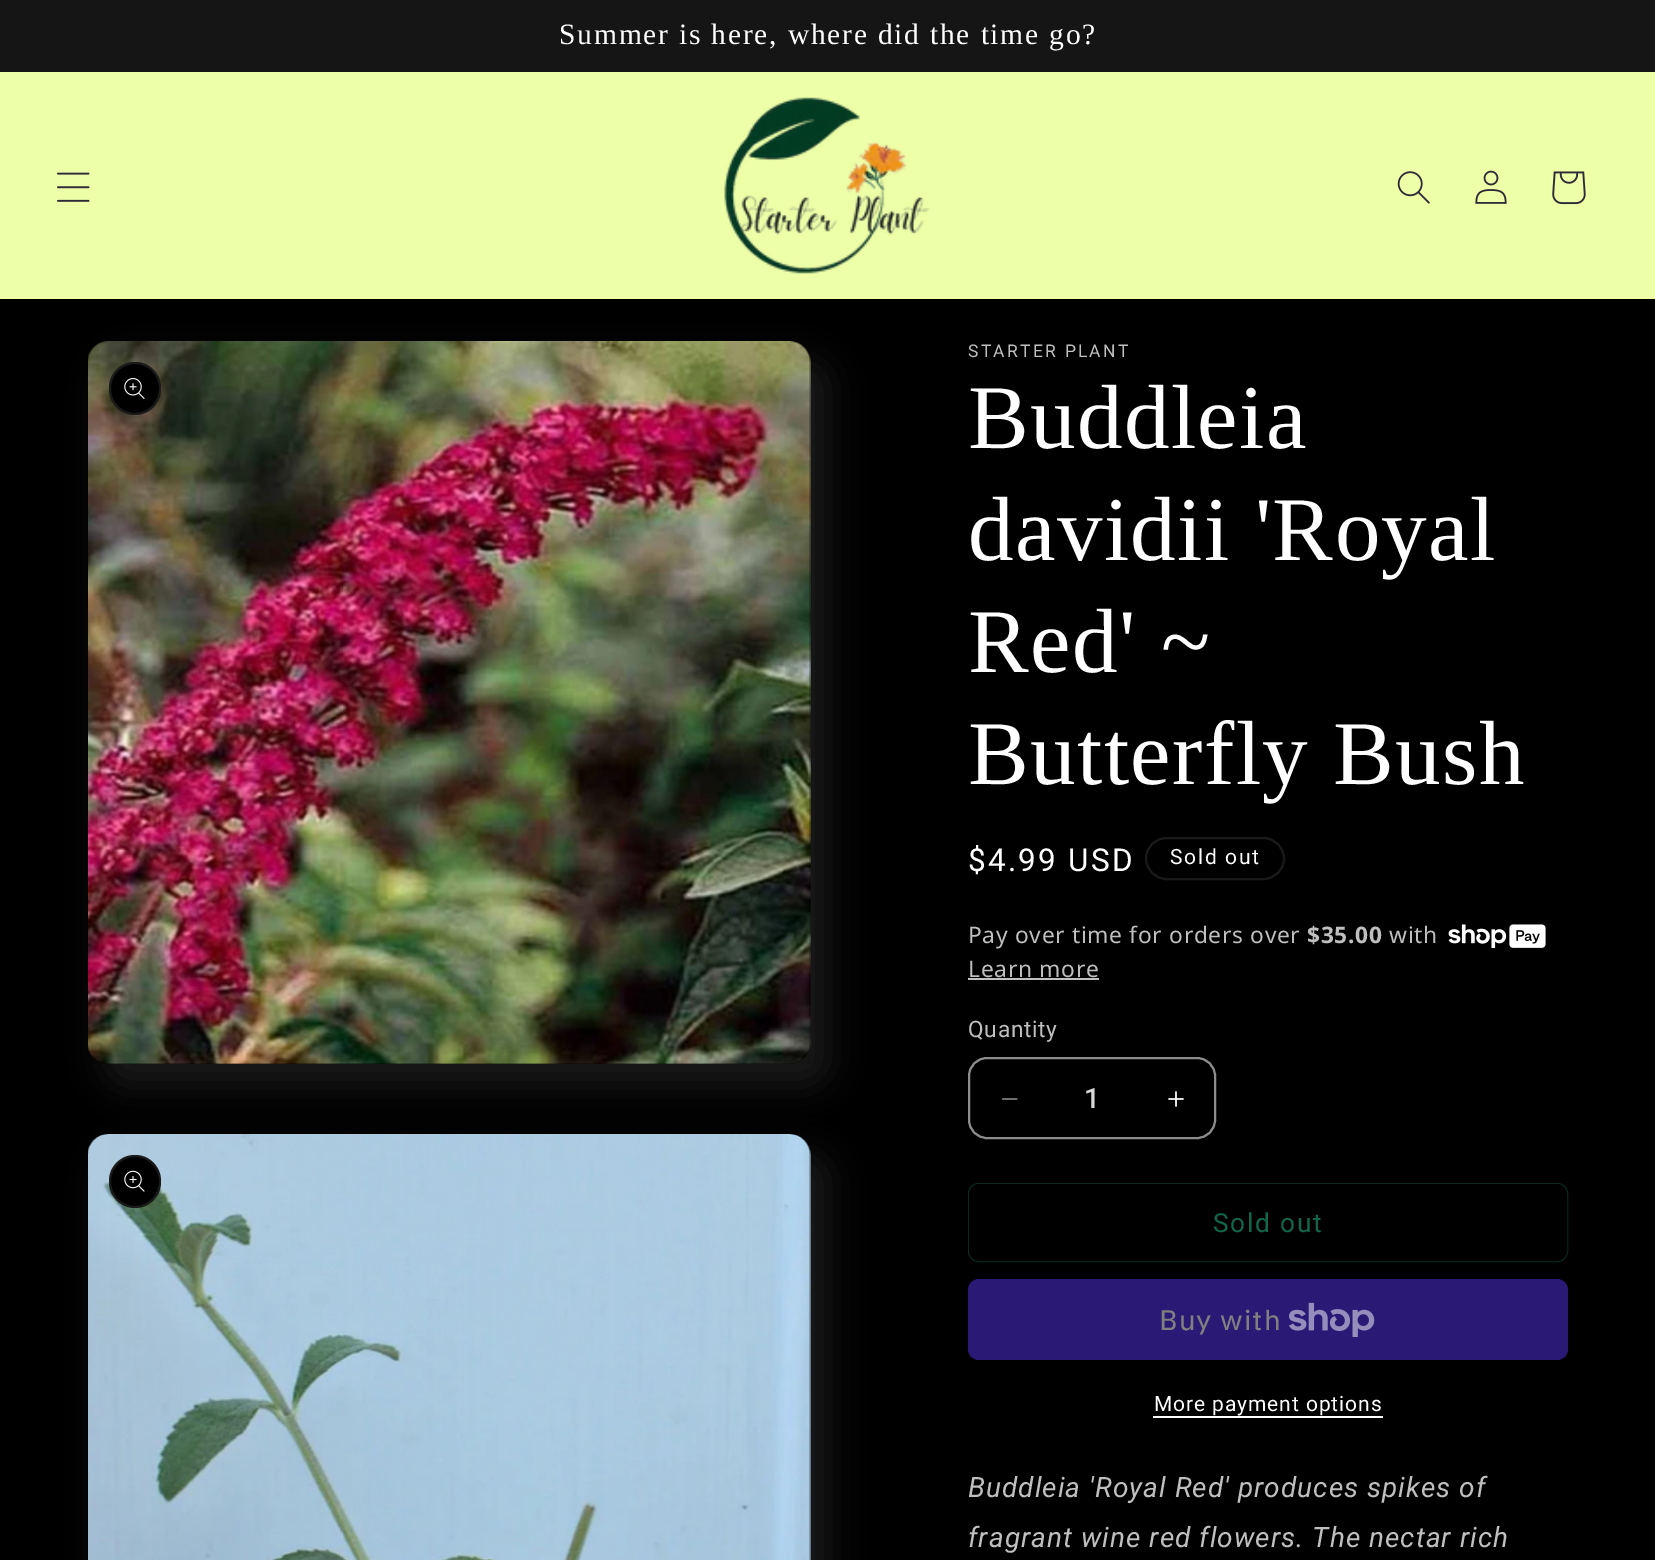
%!PS
<< /PageSize [1655 1560] /PageUsesTransparency true >> setpagedevice
/m/moveto load def
/f/fill load def
/s/stroke load def
/w/setlinewidth load def
/C { dup -16 bitshift 255 div exch dup -8 bitshift 255 and 255 div exch 255 and 255 div setrgbcolor } def
/F { [ exch dup neg 0 0 3 -1 roll 0 0 ] selectfont } def
/T { moveto show } def
/R { rectfill } def
/A { dup .setfillconstantalpha .setstrokeconstantalpha } def
/Q { 5 dict begin { /r /h /w /y /x } { exch def } forall
  x r add y moveto x w add y 2 copy h add r arct x w add y h add x 1 index r arct
  x y h add x y r arct x y 2 copy exch w add exch r arct closepath end } def
/S { 12 dict begin { /a /b /q /h /w /y /x } { exch def } forall gsave /was 0 def
  9 -2 -9 { dup b mul 4 div /e exch def 1 sub .425 mul 2.718 exch exp 1 add a .99 .min exch div /now exch def
    1 1 now sub 1 was sub div sub A /was now def
    w h .min e 2 mul add 0 gt { x e sub y e sub w e 2 mul add h e 2 mul add
      q e add b .6 mul add w h .min 2 div e add .min 0 .max Q fill } if } for grestore end } def
/I { 5 dict begin { /h /w /y /x /name } { exch def } forall
  gsave x y translate w h scale
  w h 8 [w 0 0 h 0 0] name (r) file false 3 colorimage grestore end } def
0 .pushpdf14devicefilter
0 1560 translate 1 -1 scale
4 setmiterlimit
16#000000 C
0 0 1655 1560 R
16#151515 C
0 0 1655 72 R
/LiberationSerif-Regular 29.6 F
16#FFFFFF C
559 44 m 1.75 0 (Summer is here, where did the time go?) ashow
16#EDFFA7 C
0 72 1655 227 R
(1.rgb) 57 172 33 30 I
(2.rgb) 724 97 206 177 I
(3.rgb) 1397 171 33 33 I
(4.rgb) 1475 170 32 34 I
(5.rgb) 1552 171 34 34 I
16#FFFFFF C
105 362 723 723 21 17.5 .1 S
16#000000 C
88 341 722 723 21 Q f
(6.rgb) 88 341 723 723 I
109 362 52 53 26 Q f
0.1 A
16#FFFFFF C
2 w
110 363 50 51 25 Q s
1 A
(7.rgb) 124 378 21 21 I
105 1155 723 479 21 17.5 .1 S
(8.rgb) 88 1134 723 426 I
16#000000 C
109 1155 52 53 26 Q f
0.1 A
16#FFFFFF C
110 1156 50 51 25 Q s
1 A
(9.rgb) 124 1170 21 22 I
/Roboto-Regular 17.5 F
16#BFBFBF C
968 357 m 2.25 0 (STARTER PLANT) ashow
/LiberationSerif-Regular 91 F
16#FFFFFF C
968 448 m 1.4 0 (Buddleia) ashow
968 560 m 1.4 0 (davidii 'Royal) ashow
968 672 m 1.4 0 (Red' ~) ashow
968 784 m 1.4 0 (Butterfly Bush) ashow
/Roboto-Regular 31.5 F
968 871 m 2.25 0 ($4.99 USD) ashow
16#1A1A1A C
1146 838 138 41 20.5 Q s
/Roboto-Regular 21 F
16#FFFFFF C
1170 864 m 1.75 0 (Sold out) ashow
/NotoSans-Regular 22.75 F
16#BFBFBF C
968 943 m .7 0 (Pay over time for orders over) ashow
/NotoSans-Bold 22.75 F
1307 943 m .7 0 ($35.00) ashow
/NotoSans-Regular 22.75 F
1389 943 m .7 0 (with) ashow
(10.rgb) 1448 924 98 24 I
968 977 m .7 0 (Learn more) ashow
968 978 131 2 R
/Roboto-Regular 22.75 F
968 1037 m .7 0 (Quantity) ashow
(11.rgb) 1002 1098 16 2 I
(12.rgb) 1168 1091 16 16 I
16#8C8C8C C
969 1058 246 80 18 Q s
/Roboto-Medium 28 F
16#D9D9D9 C
(1) 1084 1108 T
16#0A3829 C
.5 w
968.25 1183.25 599.5 78.5 10.75 Q s
/Roboto-Regular 26.25 F
16#12664B C
1213 1232 m 1.75 0 (Sold out) ashow
16#2A1A76 C
968 1279 600 81 11 Q f
/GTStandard-Regular 28 F
16#808080 C
1159 1330 m 1.05 0 (Buy with) ashow
(13.rgb) 1289 1302 86 35 I
/Roboto-Regular 21 F
16#FFFFFF C
1154 1411 m .9 0 (More payment options) ashow
1153 1416 230 2 R
/Roboto-Italic 28 F
16#BFBFBF C
968 1497 m 1.05 0 (Buddleia 'Royal Red' produces spikes of) ashow
968 1547 m 1.05 0 (fragrant wine red flowers. The nectar rich) ashow
.poppdf14devicefilter showpage
